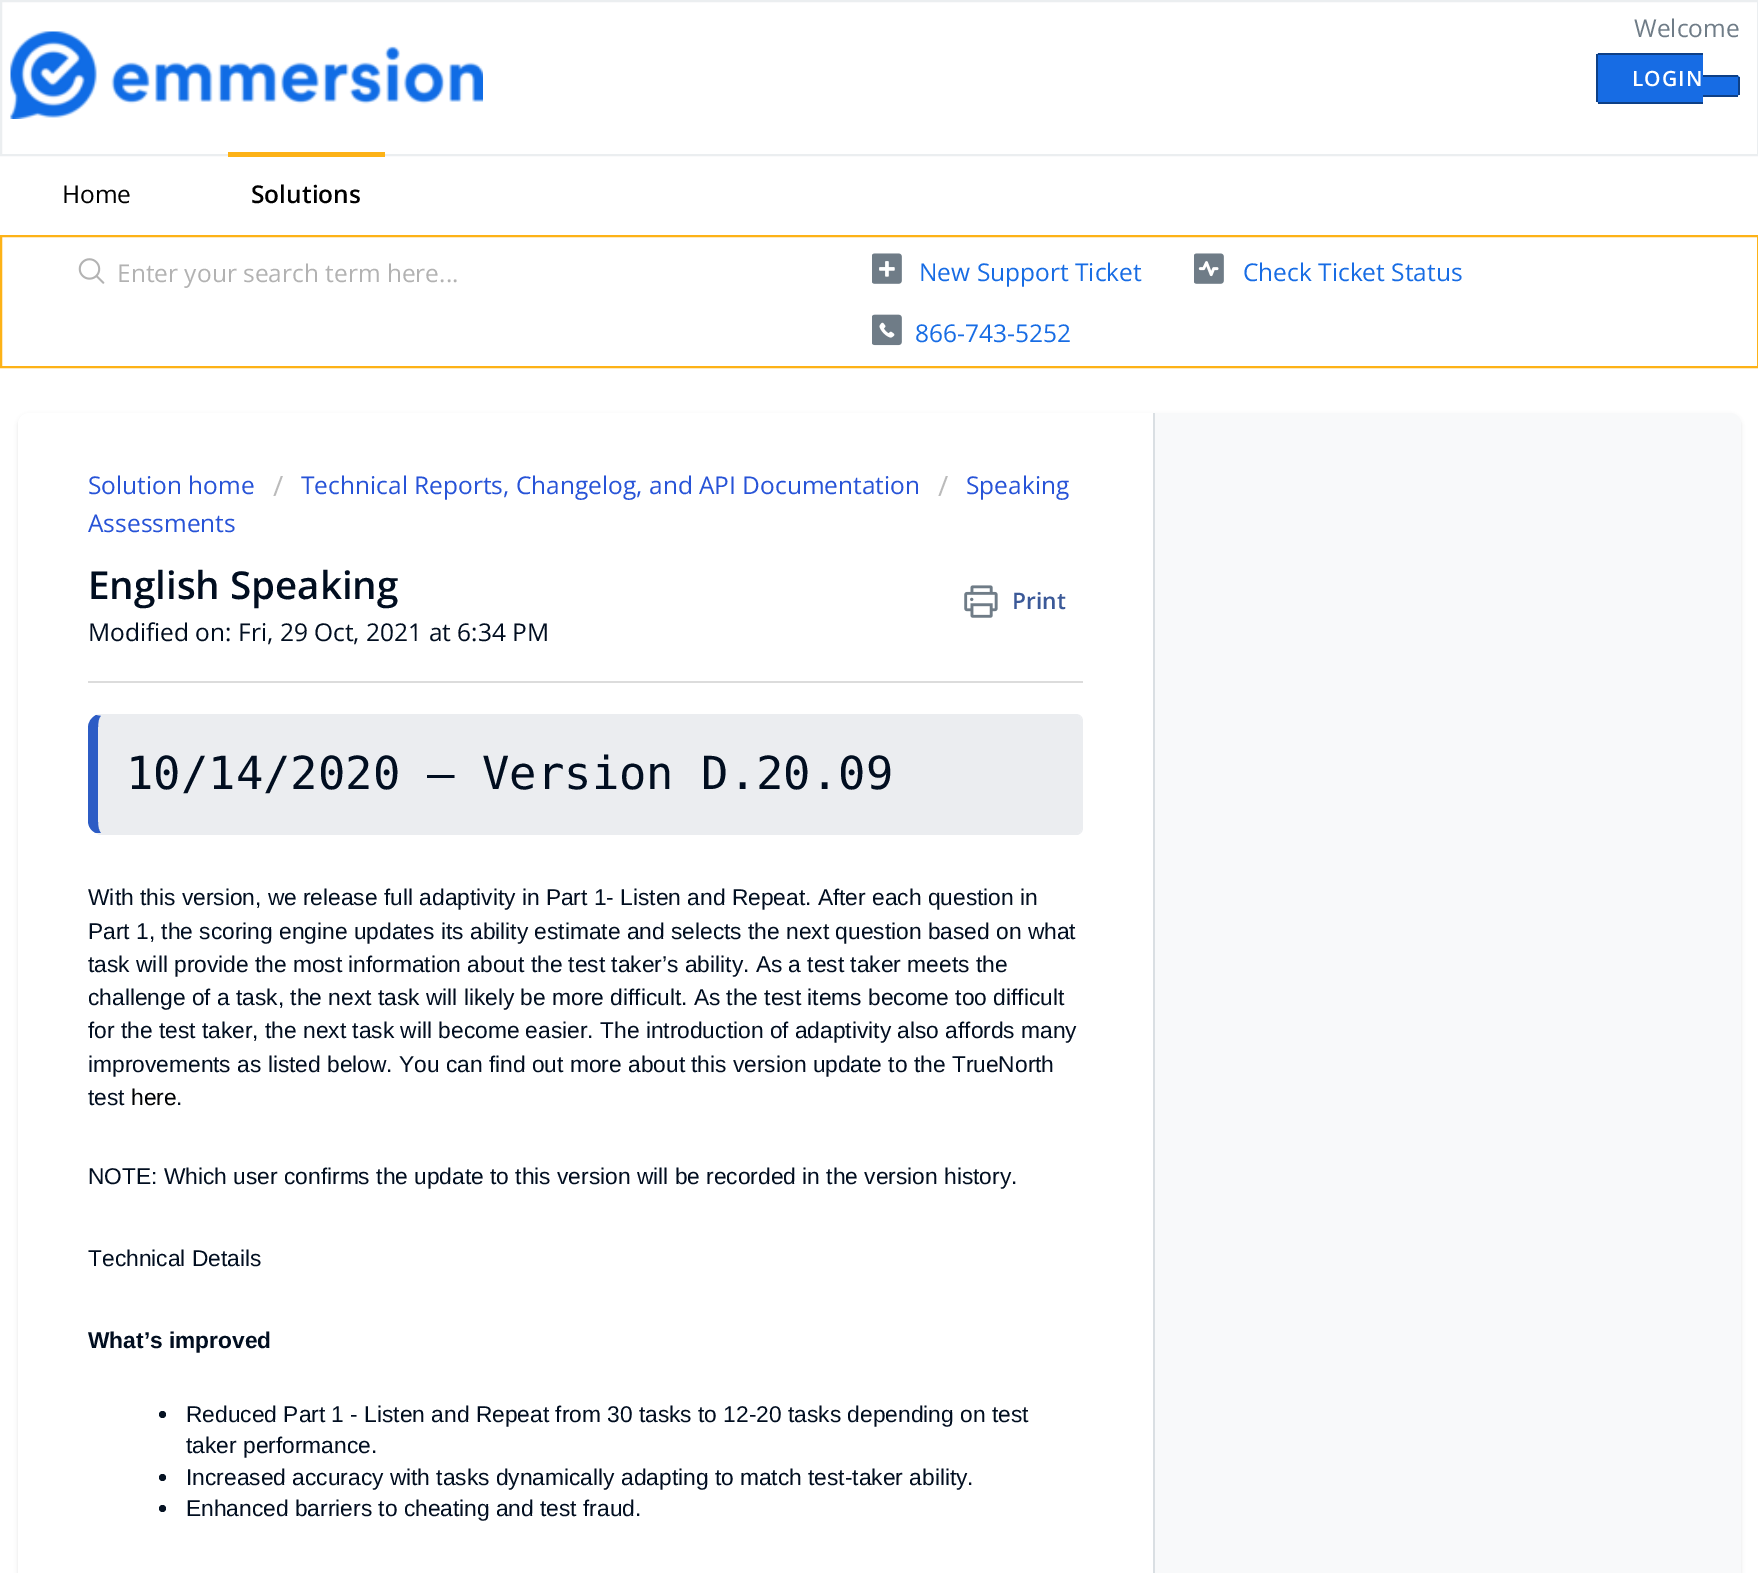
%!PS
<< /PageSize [1758 1573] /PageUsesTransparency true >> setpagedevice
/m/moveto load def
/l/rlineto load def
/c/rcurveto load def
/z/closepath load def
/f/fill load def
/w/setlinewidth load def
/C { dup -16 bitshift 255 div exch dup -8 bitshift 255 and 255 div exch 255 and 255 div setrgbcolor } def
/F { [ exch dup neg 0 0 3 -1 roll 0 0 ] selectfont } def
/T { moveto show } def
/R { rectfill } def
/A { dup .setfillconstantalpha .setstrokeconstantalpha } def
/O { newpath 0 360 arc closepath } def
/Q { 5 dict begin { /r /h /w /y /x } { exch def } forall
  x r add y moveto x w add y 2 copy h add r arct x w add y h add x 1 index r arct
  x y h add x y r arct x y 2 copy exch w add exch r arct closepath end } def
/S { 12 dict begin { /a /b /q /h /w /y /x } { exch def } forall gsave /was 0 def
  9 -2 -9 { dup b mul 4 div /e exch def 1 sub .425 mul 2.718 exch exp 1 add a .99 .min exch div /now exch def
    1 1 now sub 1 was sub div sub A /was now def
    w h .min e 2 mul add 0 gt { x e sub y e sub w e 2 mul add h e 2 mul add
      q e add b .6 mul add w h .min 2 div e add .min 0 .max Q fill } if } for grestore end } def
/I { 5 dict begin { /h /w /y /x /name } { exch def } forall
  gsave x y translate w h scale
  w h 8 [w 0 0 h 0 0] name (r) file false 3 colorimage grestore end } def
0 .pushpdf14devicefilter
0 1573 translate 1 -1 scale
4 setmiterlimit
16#FFFFFF C
0 0 1758 1573 R
16#EBEEF0 C
2 w
1 1 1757 154 rectstroke
(1.rgb) 10 31 473 88 I
/OpenSans-Regular 24.5 F
16#6F7C87 C
(Welcome) 1634 37 T
16#176CE4 C
1600 53 m 103 0 l 0 50 l -103 0 l -2 0 -4 -2 -4 -4 c 0 -42 l 0 -2 2 -4 4 -4 c z f
/OpenSans-SemiBold 21 F
16#FFFFFF C
1632 86 m 1 0 (LOGIN) ashow
16#0E4087 C
1598 53 105 2 R
1598 102 105 2 R
1596 54 2 48 R
16#176CE4 C
1703 75 m 33 0 l 2 0 4 2 4 4 c 0 13 l 0 2 -2 4 -4 4 c -33 0 l z f
16#0E4087 C
1703 75 35 2 R
1738 77 2 18 R
1703 95 35 2 R
/OpenSans-Regular 24.5 F
16#000000 C
(Home) 62 203 T
16#FDB217 C
228 152 157 5 R
/OpenSans-SemiBold 24.5 F
16#000000 C
(Solutions) 251 203 T
16#FDB217 C
1 236 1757 131 rectstroke
(2.rgb) 78 258 27 26 I
/OpenSans-Regular 24.5 F
16#B2B2B2 C
(Enter your search term here...) 117 282 T
(3.rgb) 872 253 30 31 I
16#176CE4 C
(New Support Ticket) 919 281 T
(4.rgb) 1194 253 30 31 I
(Check Ticket Status) 1243 281 T
(5.rgb) 872 314 30 32 I
(866-743-5252) 915 342 T
16#3F3F44 C
18 415 1723 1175 11 2 .15 S
16#F8F9FA C
18 413 1723 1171 11 Q f
16#FFFFFF C
29 413 m 1126 0 l 0 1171 l -1126 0 l -6 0 -11 -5 -11 -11 c 0 -1149 l 0 -6 5 -11 11 -11 c z f
16#DADFE3 C
1153 413 2 1160 R
16#2753D7 C
(Solution home) 88 494 T
/OpenSans-Regular 28 F
16#BBBBBB C
(/) 273 496 T
/OpenSans-Regular 24.5 F
16#2753D7 C
(Technical Reports, Changelog, and API Documentation) 301 494 T
/OpenSans-Regular 28 F
16#BBBBBB C
(/) 938 496 T
/OpenSans-Regular 24.5 F
16#2753D7 C
(Speaking) 966 494 T
(Assessments) 88 532 T
/OpenSans-SemiBold 38.5 F
16#010E20 C
(English Speaking) 88 599 T
(6.rgb) 964 585 34 33 I
/OpenSans-SemiBold 22.75 F
16#3B5998 C
(Print) 1012 609 T
/OpenSans-Regular 24.5 F
16#010E20 C
(Modified on: Fri, 29 Oct, 2021 at 6:34 PM) 88 641 T
16#DCDCDC C
88 681 995 2 R
16#EBEDF0 C
102 716 m 974 0 l 3 0 6 2 6 5 c 0 107 l 0 3 -3 5 -6 5 c -974 0 l -2 0 -4 -5 -4 -12 c 0 -93 l 0 -7 2 -12 4 -12 c z f
102 714 m -2 0 -4 0 -6 1 c 5 1 l 975 0 l 4 1 l 1 -1 l -1 -1 -3 -2 -5 -2 c z f
1081 716 m 1 1 2 3 2 5 c 0 107 l 0 2 -1 4 -2 5 c -1 -1 l 1 -1 2 -2 2 -4 c 0 -107 l 0 -2 -1 -3 -2 -4 c z f
99 835 m -3 -2 l 5 0 l 1 0 l 974 0 l 2 0 3 -1 4 -1 c 1 1 l -3 2 l z f
16#2C5CC5 C
96 715 m -5 3 -8 7 -8 13 c 0 93 l 0 5 3 10 8 12 c 5 0 l -2 -2 -3 -6 -3 -12 c 0 -93 l 0 -6 1 -11 3 -12 c z f
/DejaVuSansMono-Regular 45.5 F
16#010E20 C
(10/14/2020 – Version D.20.09) 126 789 T
/LiberationSans-Regular 22.75 F
(With this version, we release full adaptivity in Part 1- Listen and Repeat. After each question in) 88 905 T
(Part 1, the scoring engine updates its ability estimate and selects the next question based on what) 88 939 T
(task will provide the most information about the test taker’s ability. As a test taker meets the) 88 972 T
(challenge of a task, the next task will likely be more difficult. As the test items become too difficult) 88 1005 T
(for the test taker, the next task will become easier. The introduction of adaptivity also affords many) 88 1038 T
(improvements as listed below. You can find out more about this version update to the TrueNorth) 88 1072 T
(test) 88 1105 T
16#000000 C
(here) 131 1105 T
16#010E20 C
(.) 176 1105 T
(NOTE: Which user confirms the update to this version will be recorded in the version history.) 88 1184 T
(Technical Details) 88 1266 T
/LiberationSans-Bold 22.75 F
(What’s improved) 88 1348 T
16#061323 C
162.5 1414.5 3.5 O f
/LiberationSans-Regular 22.75 F
16#010E20 C
(Reduced Part 1 - Listen and Repeat from 30 tasks to 12-20 tasks depending on test) 186 1422 T
(taker performance.) 186 1453 T
16#061323 C
162.5 1477.5 3.5 O f
16#010E20 C
(Increased accuracy with tasks dynamically adapting to match test-taker ability.) 186 1485 T
16#061323 C
162.5 1508.5 3.5 O f
16#010E20 C
(Enhanced barriers to cheating and test fraud.) 186 1516 T
.poppdf14devicefilter showpage
